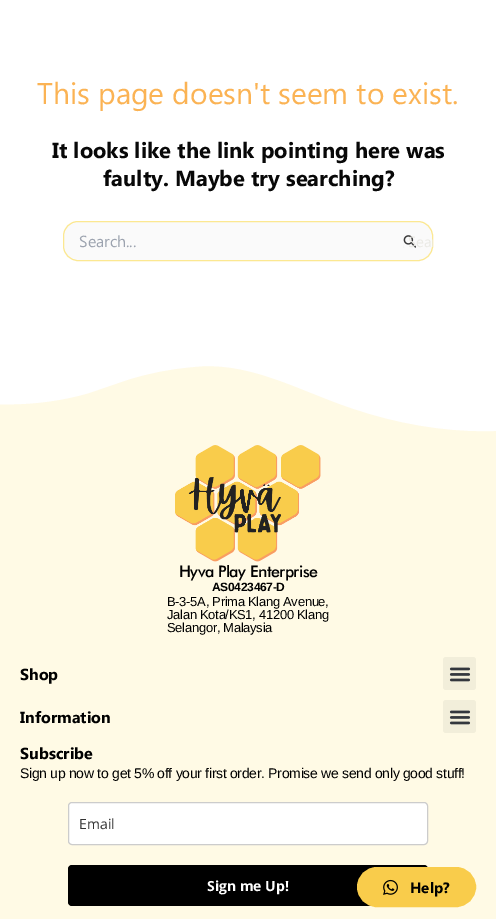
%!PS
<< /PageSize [496 919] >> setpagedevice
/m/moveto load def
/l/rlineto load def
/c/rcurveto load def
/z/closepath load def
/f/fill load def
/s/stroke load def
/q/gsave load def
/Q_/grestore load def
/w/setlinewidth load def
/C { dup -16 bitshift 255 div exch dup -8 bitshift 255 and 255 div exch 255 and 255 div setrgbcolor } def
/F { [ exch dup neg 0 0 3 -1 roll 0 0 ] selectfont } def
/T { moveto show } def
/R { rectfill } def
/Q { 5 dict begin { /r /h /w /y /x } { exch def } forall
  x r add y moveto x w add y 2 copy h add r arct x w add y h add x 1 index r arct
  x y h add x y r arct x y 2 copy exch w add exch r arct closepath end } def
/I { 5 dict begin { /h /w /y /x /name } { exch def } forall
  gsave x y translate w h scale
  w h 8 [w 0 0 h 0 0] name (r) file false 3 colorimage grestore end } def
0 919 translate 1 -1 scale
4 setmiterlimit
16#FFFFFF C
0 0 496 919 R
/SegoeUI-Regular 30 F
16#FBB354 C
(This page doesn't seem to exist.) 37 104 T
/SegoeUI-Bold 21.9 F
16#080808 C
(It looks like the link pointing here was) 52 158 T
(faulty. Maybe try searching?) 103 186 T
16#FAFAFA C
63.5 221.5 369 39 14.5 Q q f Q_
16#FCE891 C
s
/SegoeUI-Regular 16 F
16#9CA3AF C
(Search...) 79 247 T
(1.rgb) 403 235 13 13 I
q
388 221 45 40 15 Q clip newpath
/SegoeUI-Regular 15 F
16#EBEAE5 C
(Sear) 408 247 T
Q_
16#FFFAE5 C
0 366 496 553 R
16#FFFFFF C
193 367 m 51 -6 98 19 144 36 c 85 32 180 40 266 7 c 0 -48 l -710 0 l 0 21 l 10 5 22 8 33 11 c 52 14 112 14 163 -1 c 38 -13 l 22 -7 43 -11 66 -13 c z f
(2.rgb) 175 445 146 117 I
/Futura-Medium 16 F
16#000000 C
179 577 m -.5 0 (Hyva Play Enterprise) ashow
/LiberationSans-Bold 12 F
212 591 m -.3 0 (AS0423467-D) ashow
/LiberationSans-Regular 13 F
167 606 m -.3 0 (B-3-5A, Prima Klang Avenue,) ashow
167 619 m -.3 0 (Jalan Kota/KS1, 41200 Klang) ashow
167 632 m -.3 0 (Selangor, Malaysia) ashow
/SegoeUI-Bold 16 F
(Shop) 20 680 T
16#F2EEDA C
443 657 33 33 3 Q f
(3.rgb) 449 667 22 15 I
16#000000 C
(Information) 20 723 T
16#F2EEDA C
443 700 33 33 3 Q f
(3.rgb) 449 710 22 15 I
16#000000 C
(Subscribe) 20 759 T
/LiberationSans-Regular 14 F
20 778 m -.3 0 (Sign up now to get 5% off your first order. Promise we send only good stuff!) ashow
16#FFFFFF C
68.5 802.5 359 42 3.5 Q q f Q_
16#CCCCCC C
s
/OpenSans-Regular 14 F
16#333333 C
(Email) 79 829 T
16#000000 C
68 865 360 41 4 Q f
/OpenSans-Bold 14 F
16#FFFFFF C
(Sign me Up!) 207 891 T
16#F9CC4B C
358 868 117 38 19 Q q f Q_
2 w
s
(4.rgb) 383 879 15 16 I
/SegoeUI-Bold 15 F
16#000000 C
(Help?) 410 893 T
showpage
